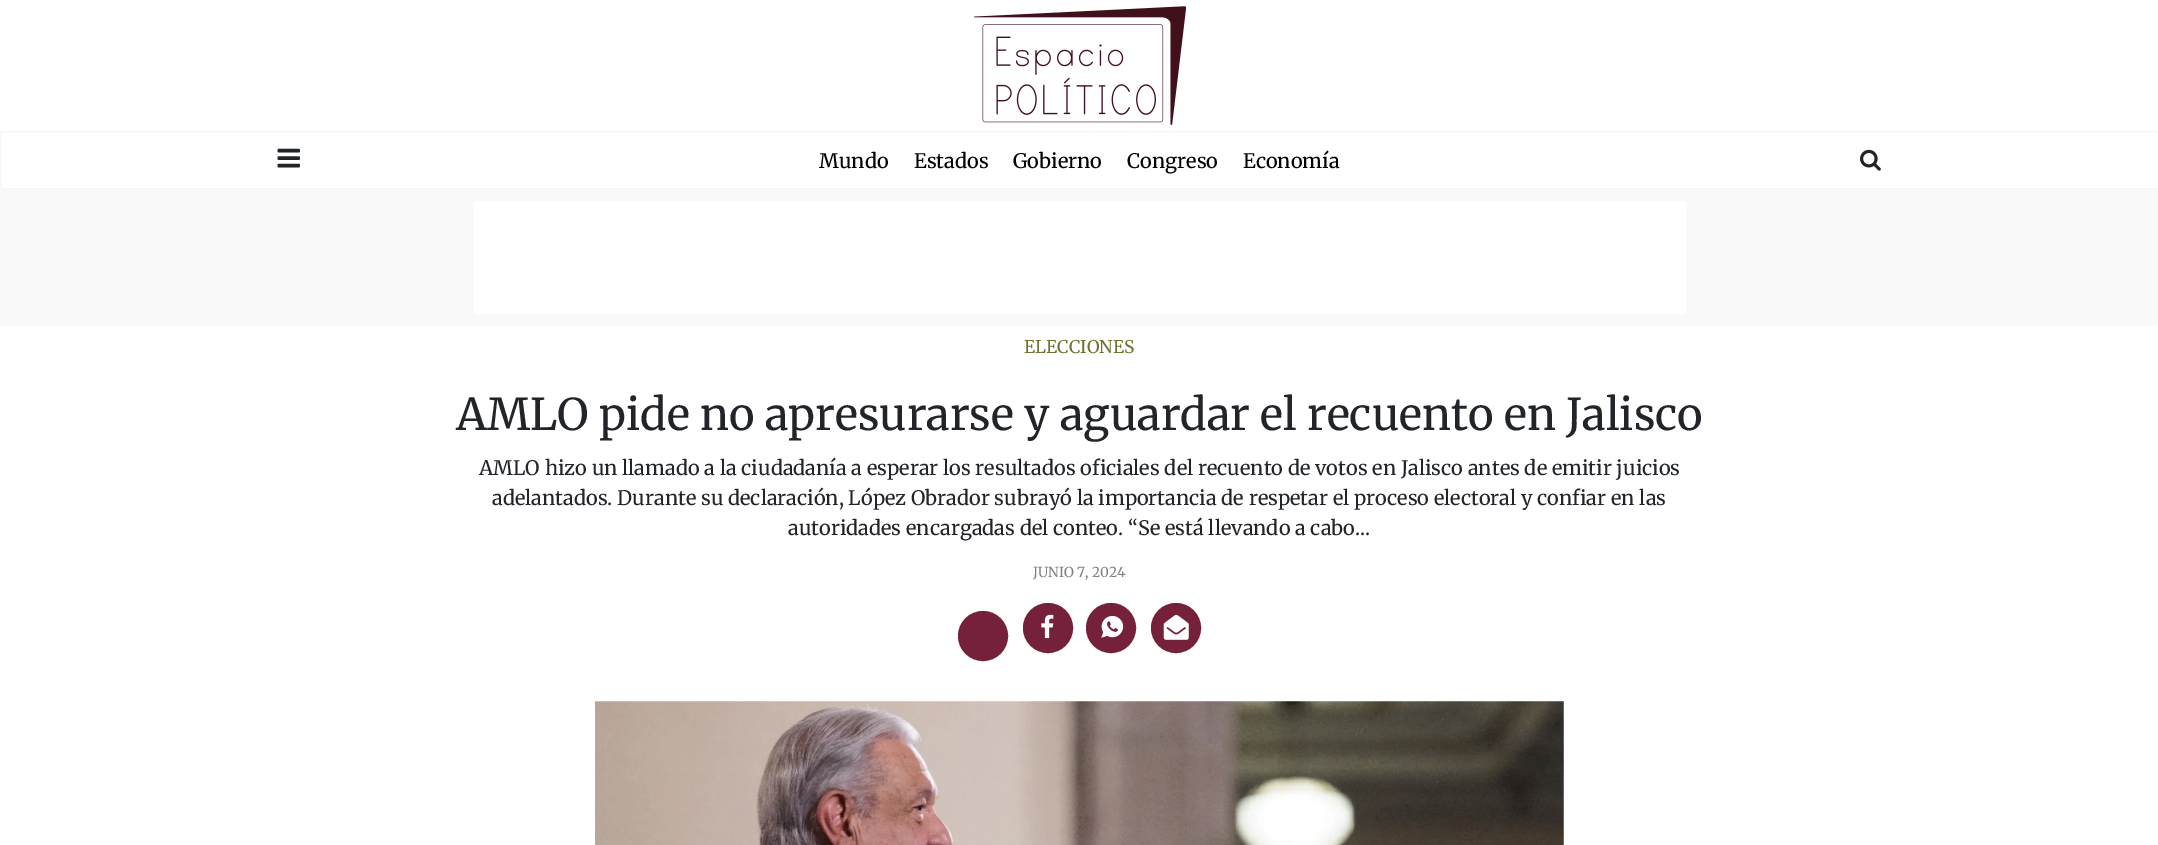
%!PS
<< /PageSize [2158 845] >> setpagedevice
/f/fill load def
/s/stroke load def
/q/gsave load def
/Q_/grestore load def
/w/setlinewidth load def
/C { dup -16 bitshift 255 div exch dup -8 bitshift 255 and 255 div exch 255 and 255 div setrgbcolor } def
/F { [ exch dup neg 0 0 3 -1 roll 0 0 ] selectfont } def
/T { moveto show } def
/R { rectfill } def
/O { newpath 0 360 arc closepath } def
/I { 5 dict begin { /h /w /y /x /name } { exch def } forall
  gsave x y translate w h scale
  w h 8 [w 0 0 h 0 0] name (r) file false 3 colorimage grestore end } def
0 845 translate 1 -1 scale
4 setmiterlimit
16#FFFFFF C
0 0 2158 845 R
(1.rgb) 974 6 212 119 I
16#F6F6F6 C
.5 131.5 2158 57 rectstroke
(2.rgb) 277 148 23 20 I
/Merriweather-Regular 20 F
16#000000 C
(Mundo) 819 168 T
(Estados) 914 168 T
(Gobierno) 1013 168 T
(Congreso) 1127 168 T
(Economía) 1243 168 T
(3.rgb) 1860 149 21 22 I
16#F9F9F9 C
0 189 2158 137 R
16#FFFFFF C
474 201 1212 113 R
/Merriweather-Regular 17.5 F
16#727131 C
(ELECCIONES) 1024 353 T
/Merriweather-Regular 43.75 F
16#212529 C
(AMLO pide no apresurarse y aguardar el recuento en Jalisco) 456 430 T
/Merriweather-Regular 20 F
(AMLO hizo un llamado a la ciudadanía a esperar los resultados oficiales del recuento de votos en Jalisco antes de emitir juicios) 479 475 T
(adelantados. Durante su declaración, López Obrador subrayó la importancia de respetar el proceso electoral y confiar en las) 492 505 T
(autoridades encargadas del conteo. “Se está llevando a cabo...) 788 535 T
/Merriweather-Regular 13.75 F
16#808080 C
(JUNIO 7, 2024) 1033 577 T
16#742139 C
983 636 23.5 O q f Q_
3 w
s
1048 628 23.5 O q f Q_
s
(4.rgb) 1041 614 13 25 I
1111 628 23.5 O q f Q_
s
(5.rgb) 1101 615 23 23 I
1176 628 23.5 O q f Q_
s
(6.rgb) 1163 614 26 26 I
(7.rgb) 595 701 969 144 I
showpage
